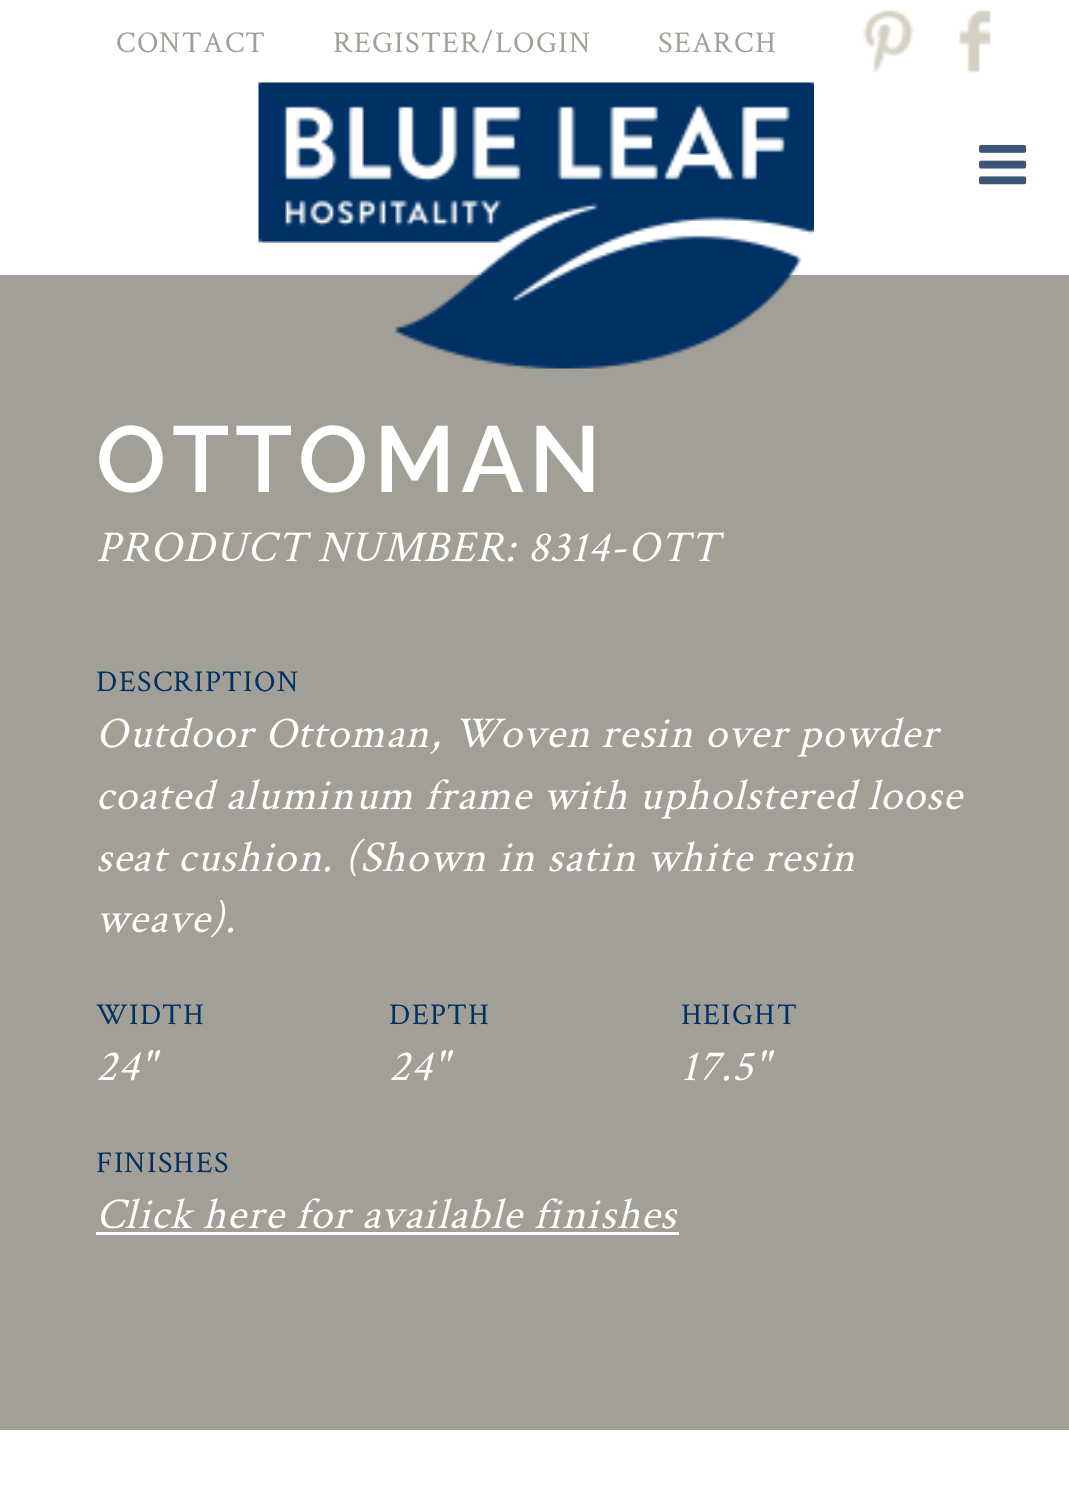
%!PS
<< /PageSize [1069 1485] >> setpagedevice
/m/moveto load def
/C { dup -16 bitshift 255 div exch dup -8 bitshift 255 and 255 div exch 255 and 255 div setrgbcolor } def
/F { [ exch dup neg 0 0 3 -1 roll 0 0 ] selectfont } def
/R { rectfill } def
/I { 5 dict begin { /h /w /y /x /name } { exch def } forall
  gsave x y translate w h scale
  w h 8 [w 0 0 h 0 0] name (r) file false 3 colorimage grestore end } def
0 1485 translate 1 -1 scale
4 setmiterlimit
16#A29F96 C
0 0 1069 1485 R
16#FFFFFF C
0 0 1069 275 R
/CrimsonText-Regular 30.25 F
16#A29F96 C
116 52 m 1.3 0 (CONTACT) ashow
333 52 m 1.3 0 (REGISTER/LOGIN) ashow
658 52 m 1.3 0 (SEARCH) ashow
(1.rgb) 862 10 52 63 I
(2.rgb) 959 10 32 63 I
(3.rgb) 979 144 48 41 I
(4.rgb) 258 82 556 287 I
/Raleway-Thin 93.5 F
16#FFFFFF C
96 492 m 5.5 0 (OTTOMAN) ashow
/CrimsonText-Italic 44 F
96 561 m 1.3 0 (PRODUCT NUMBER: 8314-OTT) ashow
/CrimsonText-Regular 30.25 F
16#003164 C
96 691 m 1.3 0 (DESCRIPTION) ashow
/CrimsonText-Italic 44 F
16#FFFFFF C
96 747 m 1.3 0 (Outdoor Ottoman, Woven resin over powder) ashow
96 809 m 1.3 0 (coated aluminum frame with upholstered loose) ashow
96 871 m 1.3 0 (seat cushion. \(Shown in satin white resin) ashow
96 932 m 1.3 0 (weave\).) ashow
/CrimsonText-Regular 30.25 F
16#003164 C
96 1024 m 1.3 0 (WIDTH) ashow
/CrimsonText-Italic 44 F
16#FFFFFF C
96 1080 m 1.3 0 (24") ashow
/CrimsonText-Regular 30.25 F
16#003164 C
389 1024 m 1.3 0 (DEPTH) ashow
/CrimsonText-Italic 44 F
16#FFFFFF C
389 1080 m 1.3 0 (24") ashow
/CrimsonText-Regular 30.25 F
16#003164 C
681 1024 m 1.3 0 (HEIGHT) ashow
/CrimsonText-Italic 44 F
16#FFFFFF C
681 1080 m 1.3 0 (17.5") ashow
/CrimsonText-Regular 30.25 F
16#003164 C
96 1172 m 1.3 0 (FINISHES) ashow
/CrimsonText-Italic 44 F
16#FFFFFF C
96 1228 m 1.3 0 (Click here for available finishes) ashow
96 1232 583 3 R
0 1430 1069 55 R
showpage
